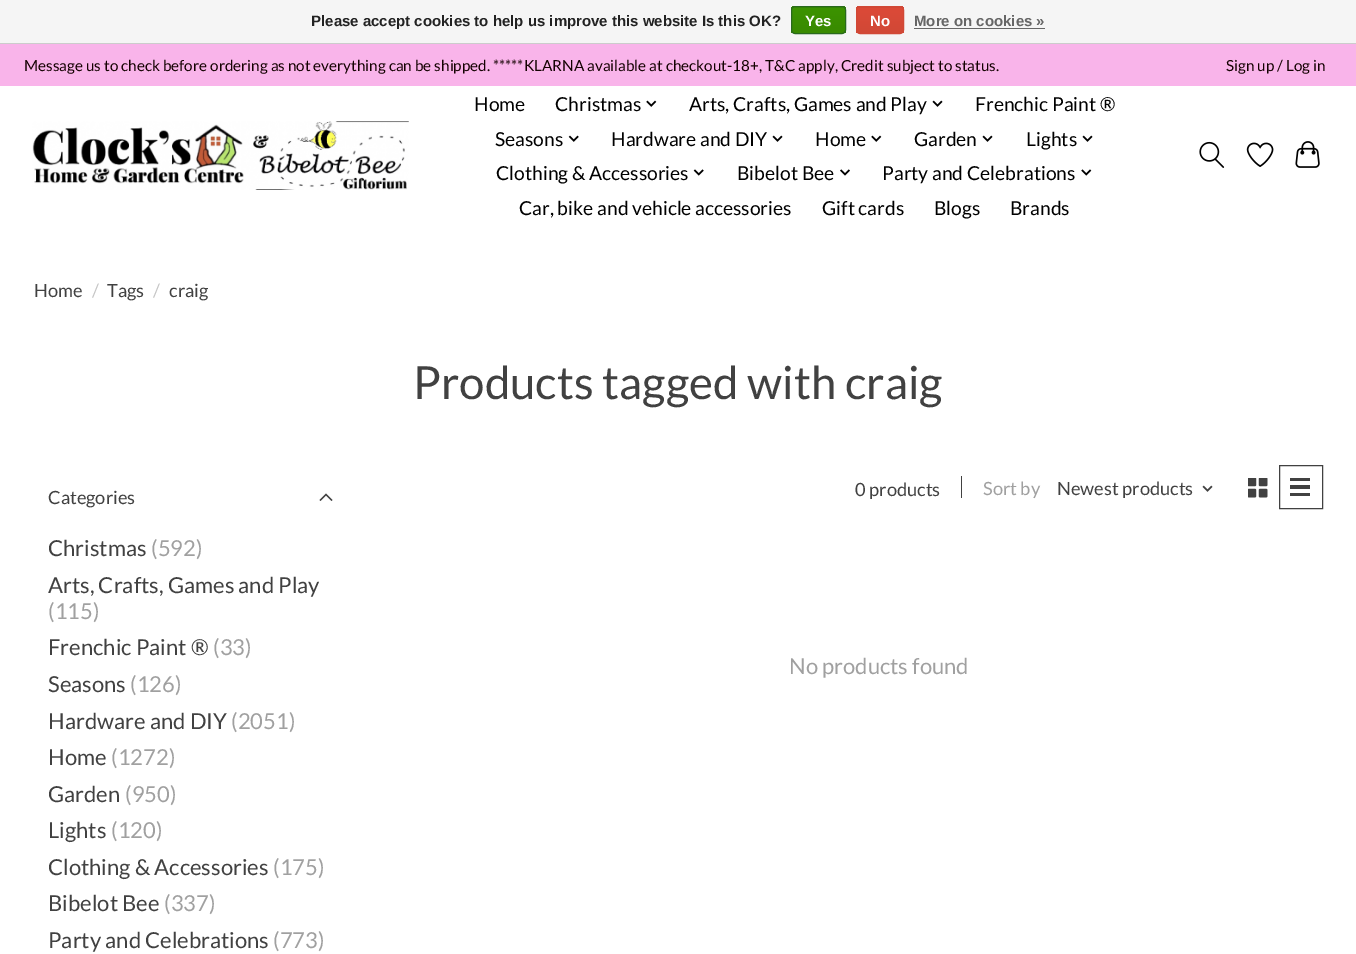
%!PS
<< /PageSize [1356 954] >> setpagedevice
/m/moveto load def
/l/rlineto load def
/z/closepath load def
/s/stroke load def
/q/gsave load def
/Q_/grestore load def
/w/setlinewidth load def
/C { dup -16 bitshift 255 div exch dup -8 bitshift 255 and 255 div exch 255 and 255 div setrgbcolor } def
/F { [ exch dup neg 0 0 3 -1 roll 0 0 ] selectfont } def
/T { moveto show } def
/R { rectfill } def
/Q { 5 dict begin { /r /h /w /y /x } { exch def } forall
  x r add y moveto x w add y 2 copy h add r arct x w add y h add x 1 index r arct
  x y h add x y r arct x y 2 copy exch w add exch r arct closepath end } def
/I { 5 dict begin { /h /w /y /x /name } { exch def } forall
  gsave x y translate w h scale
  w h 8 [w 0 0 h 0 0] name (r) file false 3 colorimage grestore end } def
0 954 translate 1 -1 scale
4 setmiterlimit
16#FFFFFF C
0 0 1356 954 R
16#F5F5F5 C
0 0 1356 43 R
16#CCCCCC C
0 43 1356 1 R
/LiberationSans-Bold 15 F
16#222222 C
(Please accept cookies to help us improve this website Is this OK?) 311 26 T
q
791 6 55 28 4 Q clip newpath
q 791 6 m 55 0 l 0 2 l -55 0 l z clip newpath
<< /ShadingType 2 /ColorSpace /DeviceRGB /Coords [819 -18 819 7.5] /Extend [true true] /Function << /FunctionType 2 /Domain [0 1] /C0 [.235 .576 0] /C1 [.224 .541 0] /N 1 >> >> shfill Q_
q 791 8 m 55 0 l 0 25 l -55 0 l z clip newpath
<< /ShadingType 2 /ColorSpace /DeviceRGB /Coords [819 7.5 819 33] /Extend [true true] /Function << /FunctionType 2 /Domain [0 1] /C0 [.235 .576 0] /C1 [.224 .541 0] /N 1 >> >> shfill Q_
Q_
16#29691D C
791.5 6.5 54 27 3.5 Q s
16#FFFFFF C
(Yes) 805 26 T
q
856 6 48 28 4 Q clip newpath
q 856 6 m 48 0 l 0 2 l -48 0 l z clip newpath
<< /ShadingType 2 /ColorSpace /DeviceRGB /Coords [880 -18 880 7.5] /Extend [true true] /Function << /FunctionType 2 /Domain [0 1] /C0 [.863 .29 .22] /C1 [.82 .282 .212] /N 1 >> >> shfill Q_
q 856 8 m 48 0 l 0 25 l -48 0 l z clip newpath
<< /ShadingType 2 /ColorSpace /DeviceRGB /Coords [880 7.5 880 33] /Extend [true true] /Function << /FunctionType 2 /Domain [0 1] /C0 [.863 .29 .22] /C1 [.82 .282 .212] /N 1 >> >> shfill Q_
Q_
16#D14836 C
856.5 6.5 47 27 3.5 Q s
16#FFFFFF C
(No) 870 26 T
16#666666 C
(More on cookies ») 914 26 T
914 28 131 1 R
16#F9B4EA C
0 44 1356 42 R
/Lato-Regular 15.28 F
16#150202 C
(Message us to check before ordering as not everything can be shipped. *****KLARNA available at checkout-18+, T&C apply, Credit subject to status.) 24 71 T
(Sign up / Log in) 1226 71 T
(1.rgb) 32 121 377 69 I
/Lato-Regular 19.25 F
16#000000 C
(Home) 474 111 T
(Christmas) 555 111 T
(2.rgb) 646 100 11 7 I
(Arts, Crafts, Games and Play) 689 111 T
(3.rgb) 932 100 11 7 I
(Frenchic Paint ®) 975 111 T
(Seasons) 495 146 T
(4.rgb) 568 135 11 7 I
(Hardware and DIY) 611 146 T
(3.rgb) 772 135 11 7 I
(Home) 815 146 T
(2.rgb) 871 135 11 7 I
(Garden) 914 146 T
(3.rgb) 982 135 11 7 I
(Lights) 1026 146 T
(3.rgb) 1082 135 11 7 I
(Clothing & Accessories) 496 180 T
(5.rgb) 693 169 11 7 I
(Bibelot Bee) 737 180 T
(6.rgb) 840 169 10 7 I
(Party and Celebrations) 882 180 T
(7.rgb) 1081 169 11 7 I
(Car, bike and vehicle accessories) 519 215 T
(Gift cards) 822 215 T
(Blogs) 934 215 T
(Brands) 1010 215 T
(8.rgb) 1199 141 26 27 I
(9.rgb) 1246 142 28 25 I
(10.rgb) 1295 141 25 27 I
/Lato-Regular 18.25 F
16#414141 C
(Home) 34 297 T
16#C6C6C6 C
(/) 92 297 T
16#414141 C
(Tags) 107 297 T
16#C6C6C6 C
(/) 153 297 T
16#414141 C
(craig) 169 297 T
/Lato-Regular 45.6 F
(Products tagged with craig) 413 399 T
/Lato-Regular 18.25 F
(Categories) 48 504 T
1.3 w
2 setlinecap
320.5 500 m 5.5 -5.5 l 331.5 500 m -5.5 -5.5 l s
/Lato-Regular 22 F
(Christmas) 48 556 T
16#A0A0A0 C
(\(592\)) 151 556 T
16#414141 C
(Arts, Crafts, Games and Play) 48 593 T
16#A0A0A0 C
(\(115\)) 48 619 T
16#414141 C
(Frenchic Paint ®) 48 655 T
16#A0A0A0 C
(\(33\)) 213 655 T
16#414141 C
(Seasons) 48 692 T
16#A0A0A0 C
(\(126\)) 130 692 T
16#414141 C
(Hardware and DIY) 48 729 T
16#A0A0A0 C
(\(2051\)) 231 729 T
16#414141 C
(Home) 48 765 T
16#A0A0A0 C
(\(1272\)) 111 765 T
16#414141 C
(Garden) 48 802 T
16#A0A0A0 C
(\(950\)) 125 802 T
16#414141 C
(Lights) 48 838 T
16#A0A0A0 C
(\(120\)) 111 838 T
16#414141 C
(Clothing & Accessories) 48 875 T
16#A0A0A0 C
(\(175\)) 273 875 T
16#414141 C
(Bibelot Bee) 48 911 T
16#A0A0A0 C
(\(337\)) 164 911 T
16#414141 C
(Party and Celebrations) 48 948 T
16#A0A0A0 C
(\(773\)) 273 948 T
/Lato-Regular 18.25 F
16#414141 C
(0 products) 855 496 T
961 476 1 22 R
16#A0A0A0 C
(Sort by) 983 495 T
16#414141 C
(Newest products) 1057 495 T
(11.rgb) 1202 485 11 7 I
(12.rgb) 1248 478 20 20 I
1 w
0 setlinecap
1279.5 465.5 43 43 rectstroke
1290 478 20 3 R
1290 485 20 4 R
1290 493 20 3 R
/Lato-Regular 22 F
16#A0A0A0 C
(No products found) 789 674 T
showpage
